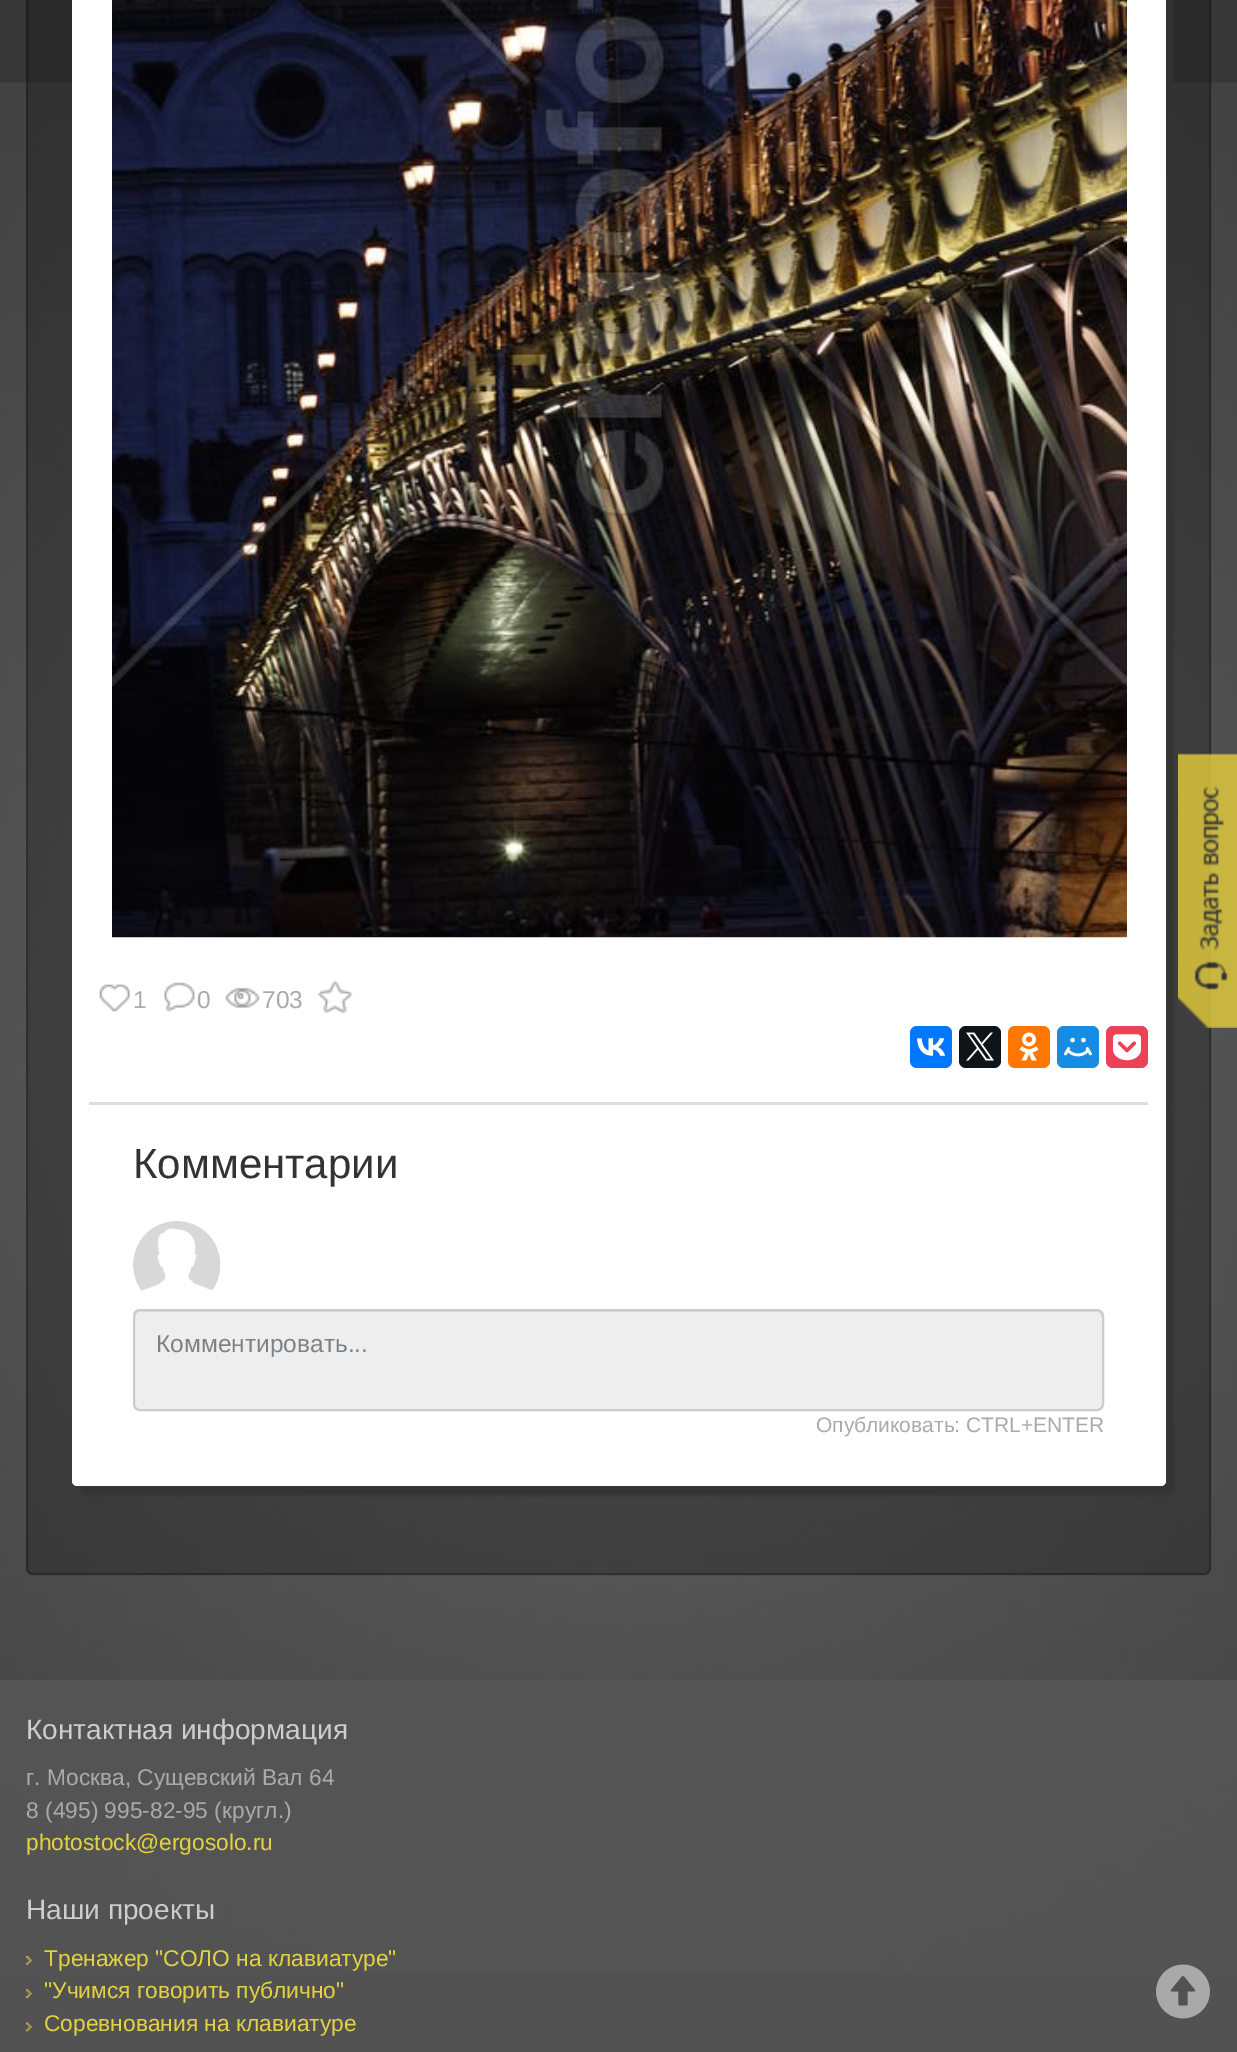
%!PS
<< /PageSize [1237 2052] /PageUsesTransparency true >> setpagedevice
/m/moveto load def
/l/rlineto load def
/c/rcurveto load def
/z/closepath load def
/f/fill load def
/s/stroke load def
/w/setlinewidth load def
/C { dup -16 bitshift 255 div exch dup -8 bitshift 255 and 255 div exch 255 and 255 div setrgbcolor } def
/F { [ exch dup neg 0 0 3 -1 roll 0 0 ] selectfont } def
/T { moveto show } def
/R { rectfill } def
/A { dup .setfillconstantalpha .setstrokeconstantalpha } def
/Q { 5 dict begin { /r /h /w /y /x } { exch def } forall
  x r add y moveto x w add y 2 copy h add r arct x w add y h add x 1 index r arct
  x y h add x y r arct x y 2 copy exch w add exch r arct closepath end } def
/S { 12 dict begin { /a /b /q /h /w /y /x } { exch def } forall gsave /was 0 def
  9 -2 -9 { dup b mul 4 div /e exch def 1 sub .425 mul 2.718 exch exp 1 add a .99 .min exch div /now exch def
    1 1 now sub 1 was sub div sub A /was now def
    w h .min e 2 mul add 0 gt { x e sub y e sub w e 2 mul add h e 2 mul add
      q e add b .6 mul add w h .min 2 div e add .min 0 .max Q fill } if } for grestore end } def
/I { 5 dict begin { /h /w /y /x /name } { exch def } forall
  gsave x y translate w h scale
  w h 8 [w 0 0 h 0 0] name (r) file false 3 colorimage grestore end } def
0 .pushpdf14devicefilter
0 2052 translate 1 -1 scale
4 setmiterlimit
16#373737 C
0 0 1237 2052 R
(1.rgb) 0 82 1237 1891 I
0.25 A
16#000000 C
26 -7 1185 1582 7 Q f
2 w
27 -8 1183 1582 6 Q s
1 A
16#333333 C
81 -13 1093 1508 5 2.5 1 S
(2.rgb) 1178 753 59 275 I
16#FFFFFF C
72 -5 1094 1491 5 Q f
(3.rgb) 112 0 1015 938 I
(4.rgb) 99 984 31 28 I
/LiberationSans-Regular 24.5 F
16#AAAAAA C
(1) 133 1008 T
(5.rgb) 164 982 31 30 I
(0) 197 1008 T
(6.rgb) 225 987 35 21 I
(703) 262 1008 T
(7.rgb) 318 981 35 33 I
16#0077FF C
910 1026 42 42 7 Q f
(8.rgb) 917 1038 29 18 I
16#0F1419 C
959 1026 42 42 7 Q f
(9.rgb) 966 1032 28 29 I
16#FF7700 C
1008 1026 42 42 7 Q f
(10.rgb) 1019 1032 20 29 I
16#168DE2 C
1057 1026 42 42 7 Q f
(11.rgb) 1064 1037 28 20 I
16#EE4056 C
1106 1026 42 42 7 Q f
(12.rgb) 1113 1034 28 27 I
16#DDDDDD C
89 1102 1059 3 R
/LiberationSans-Regular 42 F
16#333333 C
(Комментарии) 133 1178 T
(13.rgb) 133 1221 88 70 I
16#EEEEEE C
133 1309 971 102 7 Q f
16#DCDCDC C
140 1312 m 957 0 l 3 0 5 3 5 6 c 0 87 l -1 3 l 1 -1 2 -3 2 -4 c 0 -88 l 0 -3 -2 -5 -5 -5 c -958 0 l -3 0 -5 2 -5 5 c 0 2 l 0 -3 2 -6 5 -6 c z f
16#CCCCCC C
134 1310 969 100 6 Q s
/LiberationSans-Regular 24.5 F
16#7A8288 C
(Комментировать...) 156 1352 T
/LiberationSans-Regular 21 F
16#AAAAAA C
(Опубликовать: CTRL+ENTER) 816 1432 T
0.9 A
16#555555 C
0 1680 1237 372 R
/LiberationSans-Regular 28 F
1 A
16#CDCDCD C
(Контактная информация) 26 1739 T
/LiberationSans-Regular 22.75 F
16#AAAAAA C
(г. Москва, Сущевский Вал 64) 26 1785 T
(8 \(495\) 995-82-95 \(кругл.\)) 26 1818 T
16#E2D241 C
(photostock@ergosolo.ru) 26 1850 T
/LiberationSans-Regular 28 F
16#CDCDCD C
(Наши проекты) 26 1919 T
(14.rgb) 26 1956 6 9 I
/LiberationSans-Regular 22.75 F
16#E2D241 C
(Тренажер "СОЛО на клавиатуре") 44 1966 T
(15.rgb) 26 1989 6 9 I
("Учимся говорить публично") 44 1998 T
(16.rgb) 26 2022 6 10 I
(Соревнования на клавиатуре) 44 2031 T
(17.rgb) 1156 1964 54 55 I
.poppdf14devicefilter showpage
